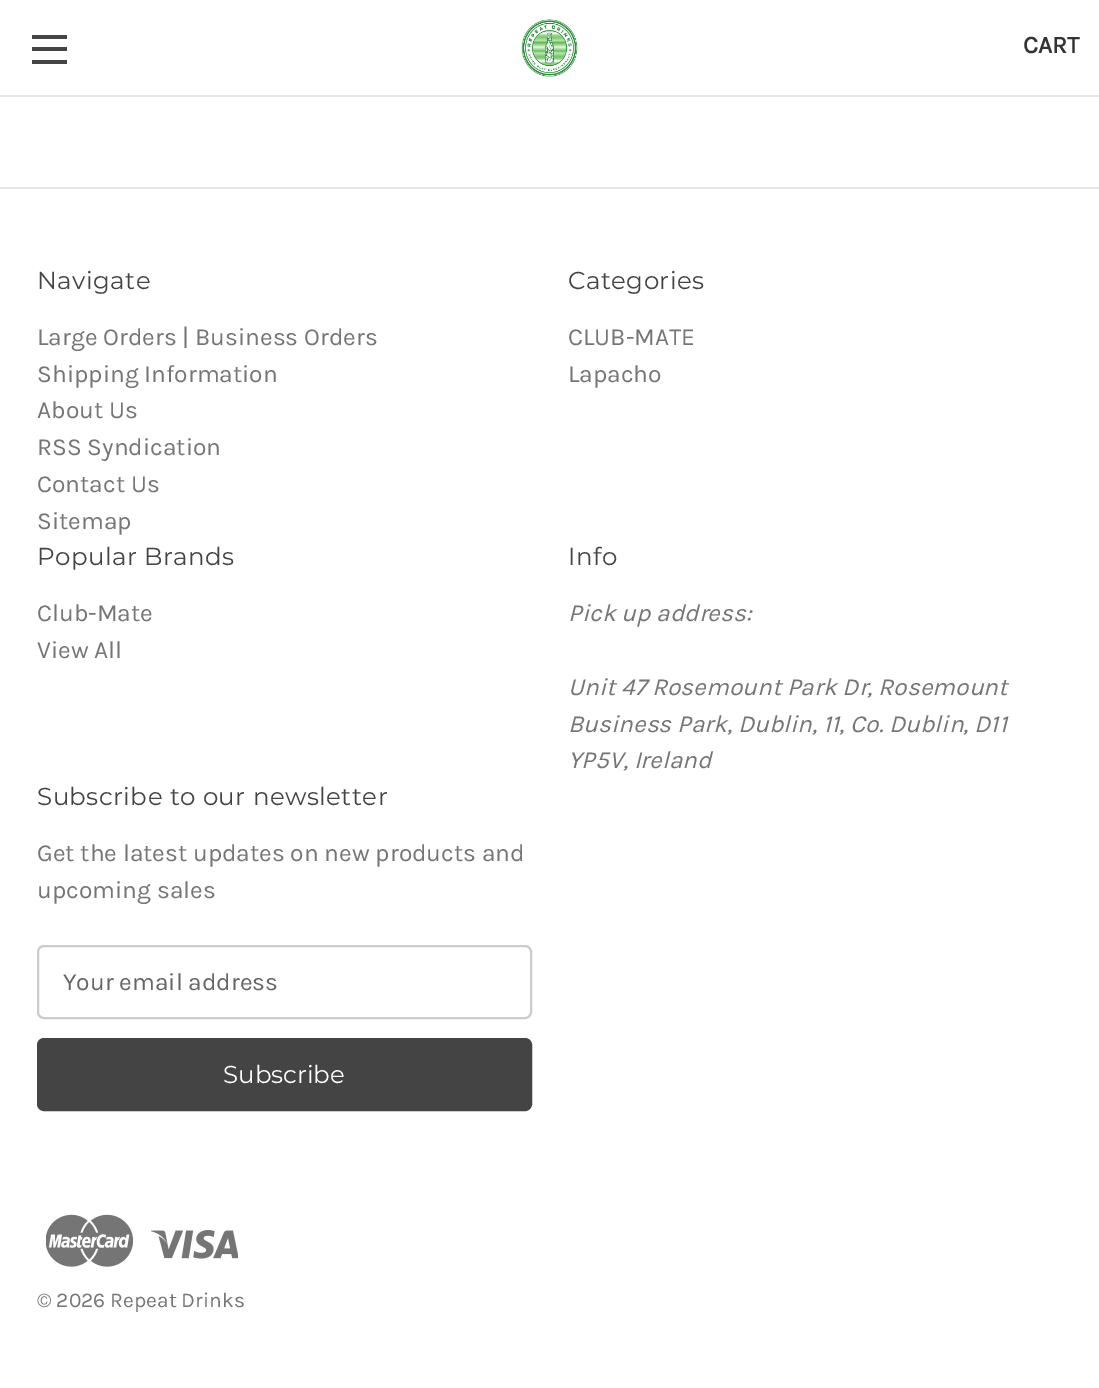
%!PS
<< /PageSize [1099 1388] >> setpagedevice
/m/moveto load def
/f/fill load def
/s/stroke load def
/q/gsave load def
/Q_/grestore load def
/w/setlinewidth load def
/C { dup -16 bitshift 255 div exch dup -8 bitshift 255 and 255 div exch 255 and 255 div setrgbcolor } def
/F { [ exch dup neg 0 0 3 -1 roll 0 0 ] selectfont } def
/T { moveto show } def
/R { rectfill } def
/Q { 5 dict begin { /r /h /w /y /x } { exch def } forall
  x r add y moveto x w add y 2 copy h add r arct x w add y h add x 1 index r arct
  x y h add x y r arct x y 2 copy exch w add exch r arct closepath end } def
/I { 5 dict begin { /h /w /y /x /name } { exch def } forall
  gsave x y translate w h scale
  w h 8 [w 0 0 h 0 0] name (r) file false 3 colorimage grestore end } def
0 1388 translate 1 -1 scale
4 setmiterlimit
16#FFFFFF C
0 0 1099 1388 R
16#E5E5E5 C
0 95 1099 2 R
16#444444 C
32 47 35 4 R
32 35 35 4 R
32 60 35 4 R
(1.rgb) 521 19 57 58 I
/Karla-Bold 24.5 F
16#333333 C
(CART) 1023 53 T
16#E5E5E5 C
0 187 1099 2 R
/Montserrat-Regular 24.5 F
16#444444 C
37 289 m .45 0 (Navigate) ashow
/Karla-Regular 24.5 F
16#757575 C
(Large Orders | Business Orders) 37 345 T
(Shipping Information) 37 382 T
(About Us) 37 418 T
(RSS Syndication) 37 455 T
(Contact Us) 37 492 T
(Sitemap) 37 529 T
/Montserrat-Regular 24.5 F
16#444444 C
568 289 m .45 0 (Categories) ashow
/Karla-Regular 24.5 F
16#757575 C
(CLUB-MATE) 568 345 T
(Lapacho) 568 382 T
/Montserrat-Regular 24.5 F
16#444444 C
37 565 m .45 0 (Popular Brands) ashow
/Karla-Regular 24.5 F
16#757575 C
(Club-Mate) 37 621 T
(View All) 37 658 T
/Montserrat-Regular 24.5 F
16#444444 C
568 565 m .45 0 (Info) ashow
/Karla-Italic 24.5 F
16#757575 C
(Pick up address:) 568 621 T
(Unit 47 Rosemount Park Dr, Rosemount) 568 695 T
(Business Park, Dublin, 11, Co. Dublin, D11) 568 732 T
(YP5V, Ireland) 568 768 T
/Montserrat-Regular 24.5 F
16#444444 C
37 805 m .45 0 (Subscribe to our newsletter) ashow
/Karla-Regular 24.5 F
16#757575 C
(Get the latest updates on new products and) 37 861 T
(upcoming sales) 37 898 T
16#CCCCCC C
2 w
38 946 493 72 6 Q s
16#666666 C
(Your email address) 63 990 T
16#444444 C
38 1039 493 71 6 Q q f Q_
s
/Montserrat-Regular 24.5 F
16#FFFFFF C
(Subscribe) 223 1083 T
(2.rgb) 46 1214 87 53 I
(3.rgb) 151 1230 87 29 I
/Karla-Regular 21 F
16#757575 C
(© 2026 Repeat Drinks) 37 1307 T
showpage
